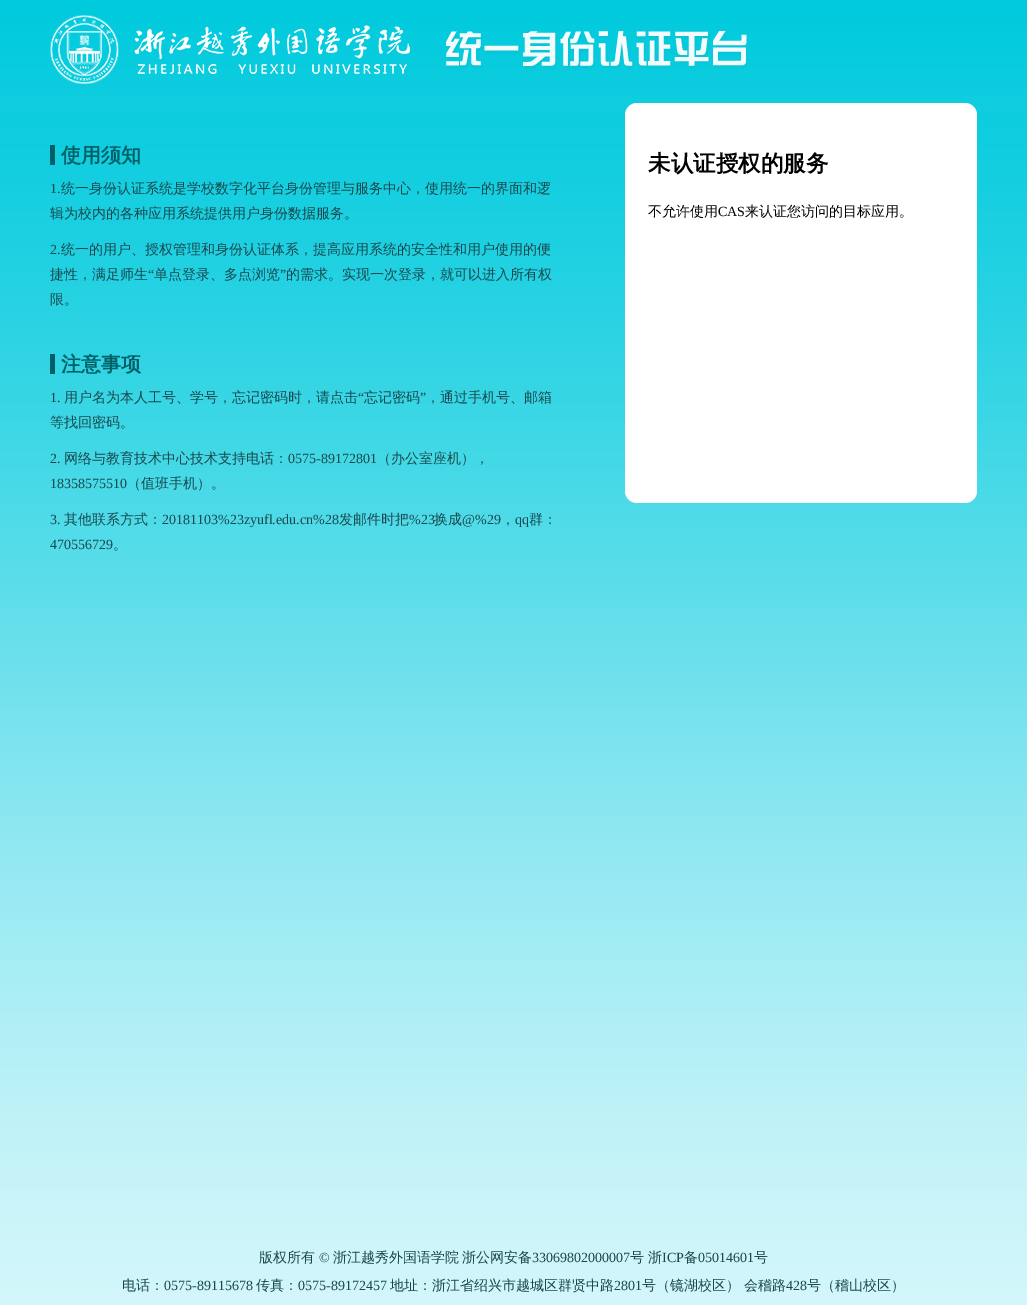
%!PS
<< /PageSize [1027 1305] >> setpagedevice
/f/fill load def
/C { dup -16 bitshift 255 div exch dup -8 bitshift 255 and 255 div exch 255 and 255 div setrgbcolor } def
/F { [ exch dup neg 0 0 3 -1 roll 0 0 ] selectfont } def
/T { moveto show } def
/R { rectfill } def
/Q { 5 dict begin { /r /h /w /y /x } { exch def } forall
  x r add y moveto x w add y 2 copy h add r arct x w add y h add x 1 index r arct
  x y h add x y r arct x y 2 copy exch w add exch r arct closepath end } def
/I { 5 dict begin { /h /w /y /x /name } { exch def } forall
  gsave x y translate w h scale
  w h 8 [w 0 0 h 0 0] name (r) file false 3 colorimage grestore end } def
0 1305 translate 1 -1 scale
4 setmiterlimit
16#FFFFFF C
0 0 1027 1305 R
(1.rgb) 0 0 1027 113 I
(2.rgb) 50 15 697 69 I
(3.rgb) 0 113 1027 1192 I
16#005F67 C
50 145 5 20 R
/WenQuanYiZenHei-Bold 20 F
(使用须知) 61 162 T
/LiberationSerif-Regular 14 F
16#18484D C
(1.) 50 193 T
/WenQuanYiZenHei-Medium 14 F
(统一身份认证系统是学校数字化平台身份管理与服务中心，使用统一的界面和逻) 61 193 T
(辑为校内的各种应用系统提供用户身份数据服务。) 50 218 T
/LiberationSerif-Regular 14 F
(2.) 50 254 T
/WenQuanYiZenHei-Medium 14 F
(统一的用户、授权管理和身份认证体系，提高应用系统的安全性和用户使用的便) 61 254 T
(捷性，满足师生) 50 279 T
/LiberationSerif-Regular 14 F
(“) 148 279 T
/WenQuanYiZenHei-Medium 14 F
(单点登录、多点浏览) 154 279 T
/LiberationSerif-Regular 14 F
(”) 280 279 T
/WenQuanYiZenHei-Medium 14 F
(的需求。实现一次登录，就可以进入所有权) 286 279 T
(限。) 50 304 T
16#005F67 C
50 354 5 20 R
/WenQuanYiZenHei-Bold 20 F
(注意事项) 61 371 T
/LiberationSerif-Regular 14 F
16#18484D C
(1.) 50 402 T
/WenQuanYiZenHei-Medium 14 F
(用户名为本人工号、学号，忘记密码时，请点击) 64 402 T
/LiberationSerif-Regular 14 F
(“) 358 402 T
/WenQuanYiZenHei-Medium 14 F
(忘记密码) 364 402 T
/LiberationSerif-Regular 14 F
(”) 420 402 T
/WenQuanYiZenHei-Medium 14 F
(，通过手机号、邮箱) 426 402 T
(等找回密码。) 50 427 T
/LiberationSerif-Regular 14 F
(2.) 50 463 T
/WenQuanYiZenHei-Medium 14 F
(网络与教育技术中心技术支持电话：) 64 463 T
/LiberationSerif-Regular 14 F
(0575-89172801) 288 463 T
/WenQuanYiZenHei-Medium 14 F
(（办公室座机），) 377 463 T
/LiberationSerif-Regular 14 F
(18358575510) 50 488 T
/WenQuanYiZenHei-Medium 14 F
(（值班手机）。) 127 488 T
/LiberationSerif-Regular 14 F
(3.) 50 524 T
/WenQuanYiZenHei-Medium 14 F
(其他联系方式：) 64 524 T
/LiberationSerif-Regular 14 F
(20181103%23zyufl.edu.cn%28) 162 524 T
/WenQuanYiZenHei-Medium 14 F
(发邮件时把) 339 524 T
/LiberationSerif-Regular 14 F
(%23) 409 524 T
/WenQuanYiZenHei-Medium 14 F
(换成) 434 524 T
/LiberationSerif-Regular 14 F
(@%29) 462 524 T
/WenQuanYiZenHei-Medium 14 F
(，) 501 524 T
/LiberationSerif-Regular 14 F
(qq) 515 524 T
/WenQuanYiZenHei-Medium 14 F
(群：) 529 524 T
/LiberationSerif-Regular 14 F
(470556729) 50 549 T
/WenQuanYiZenHei-Medium 14 F
(。) 113 549 T
16#FFFFFF C
625 103 352 400 12 Q f
/WenQuanYiZenHei-Bold 22.5 F
16#000000 C
(未认证授权的服务) 648 171 T
/WenQuanYiZenHei-Medium 14 F
(不允许使用) 648 216 T
/LiberationSerif-Regular 14 F
(CAS) 718 216 T
/WenQuanYiZenHei-Medium 14 F
(来认证您访问的目标应用。) 745 216 T
16#18484D C
(版权所有) 259 1262 T
/LiberationSerif-Regular 14 F
(©) 319 1262 T
/WenQuanYiZenHei-Medium 14 F
(浙江越秀外国语学院) 333 1262 T
(浙公网安备) 462 1262 T
/LiberationSerif-Regular 14 F
(33069802000007) 532 1262 T
/WenQuanYiZenHei-Medium 14 F
(号) 630 1262 T
(浙) 648 1262 T
/LiberationSerif-Regular 14 F
(ICP) 662 1262 T
/WenQuanYiZenHei-Medium 14 F
(备) 684 1262 T
/LiberationSerif-Regular 14 F
(05014601) 698 1262 T
/WenQuanYiZenHei-Medium 14 F
(号) 754 1262 T
(电话：) 122 1290 T
/LiberationSerif-Regular 14 F
(0575-89115678) 164 1290 T
/WenQuanYiZenHei-Medium 14 F
(传真：) 256 1290 T
/LiberationSerif-Regular 14 F
(0575-89172457) 298 1290 T
/WenQuanYiZenHei-Medium 14 F
(地址：浙江省绍兴市越城区群贤中路) 390 1290 T
/LiberationSerif-Regular 14 F
(2801) 614 1290 T
/WenQuanYiZenHei-Medium 14 F
(号（镜湖校区）) 642 1290 T
(会稽路) 744 1290 T
/LiberationSerif-Regular 14 F
(428) 786 1290 T
/WenQuanYiZenHei-Medium 14 F
(号（稽山校区）) 807 1290 T
showpage
